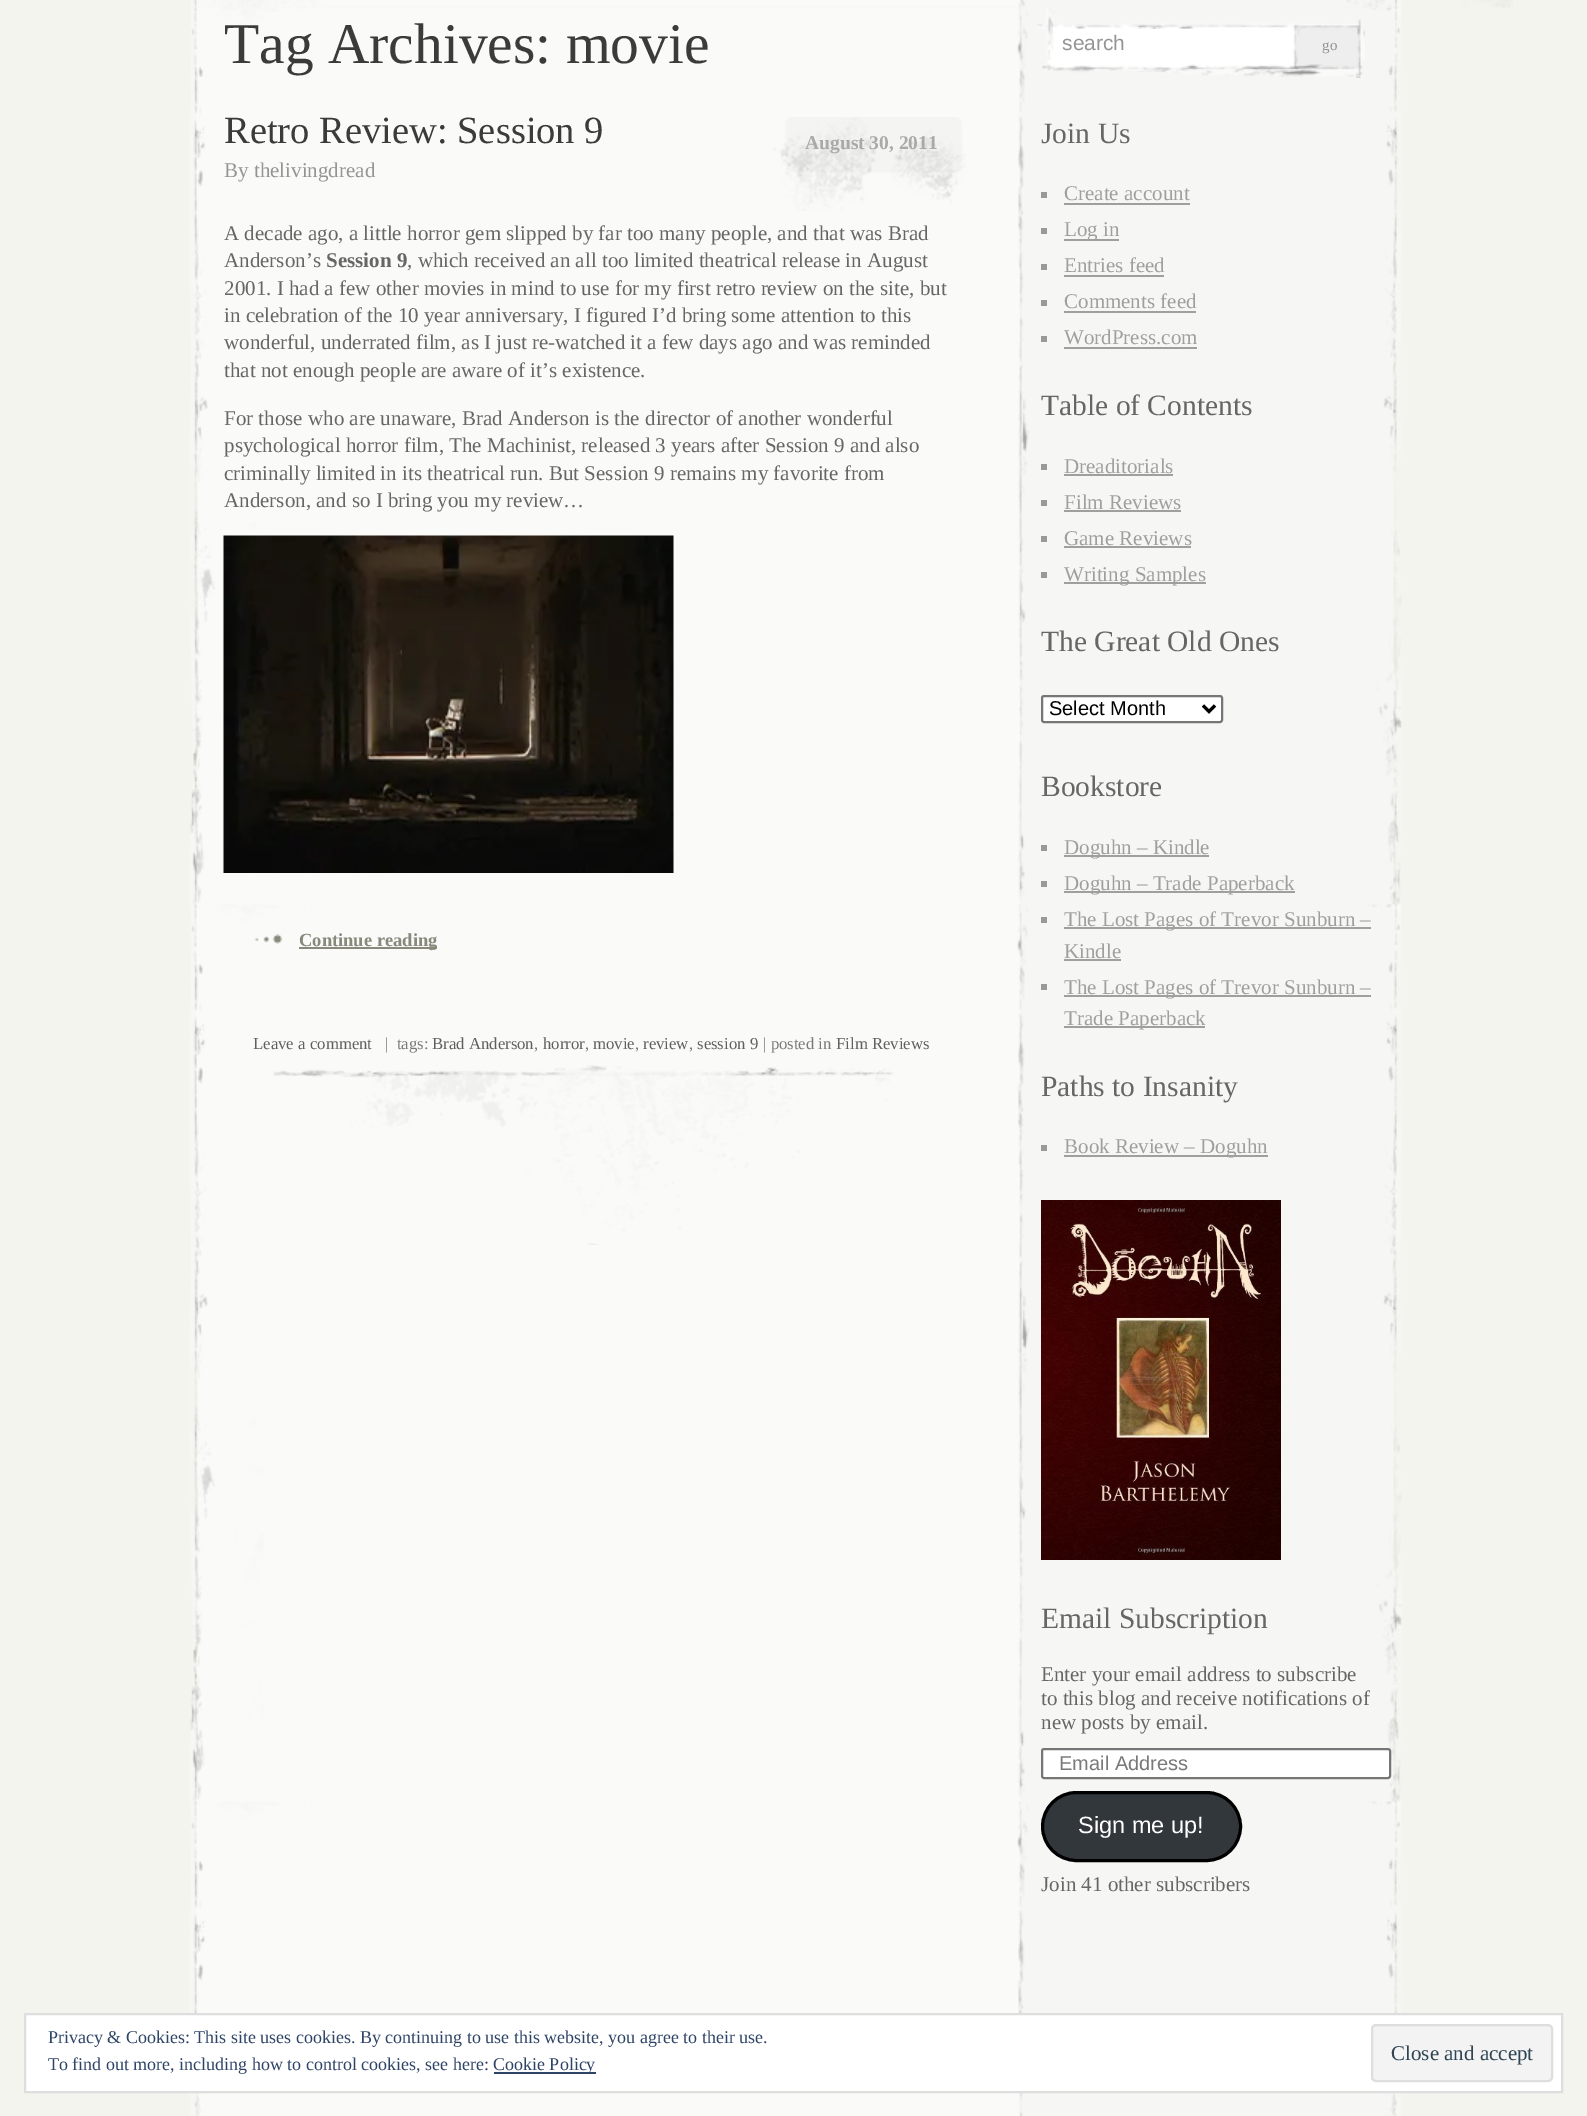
%!PS
<< /PageSize [1587 2116] >> setpagedevice
/m/moveto load def
/l/rlineto load def
/z/closepath load def
/f/fill load def
/s/stroke load def
/q/gsave load def
/Q_/grestore load def
/w/setlinewidth load def
/C { dup -16 bitshift 255 div exch dup -8 bitshift 255 and 255 div exch 255 and 255 div setrgbcolor } def
/F { [ exch dup neg 0 0 3 -1 roll 0 0 ] selectfont } def
/T { moveto show } def
/R { rectfill } def
/Q { 5 dict begin { /r /h /w /y /x } { exch def } forall
  x r add y moveto x w add y 2 copy h add r arct x w add y h add x 1 index r arct
  x y h add x y r arct x y 2 copy exch w add exch r arct closepath end } def
/I { 5 dict begin { /h /w /y /x /name } { exch def } forall
  gsave x y translate w h scale
  w h 8 [w 0 0 h 0 0] name (r) file false 3 colorimage grestore end } def
0 2116 translate 1 -1 scale
4 setmiterlimit
16#F3F4EE C
0 0 1587 2116 R
(2.rgb) 189 7 1213 2109 I
(1.rgb) 191 0 1322 8 I
/LiberationSerif-Regular 57.5 F
16#3B3B3B C
(Tag Archives: movie) 224 63 T
/LiberationSerif-Regular 38.5 F
(Retro Review: Session 9) 224 143 T
(3.rgb) 773 117 193 94 I
/LiberationSerif-Bold 19.5 F
16#A9A9A9 C
(August 30, 2011) 805 149 T
/LiberationSerif-Regular 21 F
16#949494 C
(By thelivingdread) 224 177 T
16#666666 C
(A decade ago, a little horror gem slipped by far too many people, and that was Brad) 224 240 T
(Anderson’s) 224 267 T
/LiberationSerif-Bold 21 F
(Session 9) 326 267 T
/LiberationSerif-Regular 21 F
(, which received an all too limited theatrical release in August) 407 267 T
(2001. I had a few other movies in mind to use for my first retro review on the site, but) 224 295 T
(in celebration of the 10 year anniversary, I figured I’d bring some attention to this) 224 322 T
(wonderful, underrated film, as I just re-watched it a few days ago and was reminded) 224 349 T
(that not enough people are aware of it’s existence.) 224 377 T
(For those who are unaware, Brad Anderson is the director of another wonderful) 224 425 T
(psychological horror film, The Machinist, released 3 years after Session 9 and also) 224 452 T
(criminally limited in its theatrical run. But Session 9 remains my favorite from) 224 480 T
(Anderson, and so I bring you my review…) 224 507 T
(4.rgb) 223 535 451 338 I
(5.rgb) 254 934 29 10 I
16#88897B C
299 947 138 2 R
/LiberationSerif-Bold 18.5 F
(Continue reading) 299 946 T
/LiberationSerif-Regular 16.75 F
16#5F5F5F C
(Leave a comment) 253 1049 T
16#797979 C
(|  tags:) 385 1049 T
16#5F5F5F C
(Brad Anderson) 432 1049 T
16#797979 C
(,) 534 1049 T
16#5F5F5F C
(horror) 543 1049 T
16#797979 C
(,) 585 1049 T
16#5F5F5F C
(movie) 593 1049 T
16#797979 C
(,) 635 1049 T
16#5F5F5F C
(review) 643 1049 T
16#797979 C
(,) 689 1049 T
16#5F5F5F C
(session 9) 697 1049 T
16#797979 C
(| posted in) 763 1049 T
16#5F5F5F C
(Film Reviews) 836 1049 T
(6.rgb) 273 1065 621 180 I
(7.rgb) 1037 8 328 70 I
16#FFFFFF C
1079 29 189 2 R
/LiberationSans-Regular 21 F
16#949494 C
(search) 1062 50 T
/LiberationSerif-Regular 15 F
(go) 1322 50 T
/LiberationSerif-Regular 29.5 F
16#666666 C
(Join Us) 1041 143 T
16#999999 C
1041 192 6 6 R
/LiberationSerif-Regular 21 F
16#9F9F9F C
(Create account) 1064 200 T
1064 203 126 2 R
16#999999 C
1041 228 6 6 R
16#9F9F9F C
1064 239 55 2 R
(Log in) 1064 236 T
16#999999 C
1041 264 6 6 R
16#9F9F9F C
(Entries feed) 1064 272 T
1064 275 100 2 R
16#999999 C
1041 300 6 6 R
16#9F9F9F C
(Comments feed) 1064 308 T
1064 311 132 2 R
16#999999 C
1041 336 6 6 R
16#9F9F9F C
(WordPress.com) 1064 344 T
1064 347 133 2 R
/LiberationSerif-Regular 29.5 F
16#666666 C
(Table of Contents) 1041 415 T
16#999999 C
1041 464 6 6 R
/LiberationSerif-Regular 21 F
16#9F9F9F C
(Dreaditorials) 1064 473 T
1064 474 109 2 R
16#999999 C
1041 500 6 6 R
16#9F9F9F C
(Film Reviews) 1064 509 T
1064 510 117 2 R
16#999999 C
1041 536 6 6 R
16#9F9F9F C
(Game Reviews) 1064 545 T
1064 546 127 2 R
16#999999 C
1041 572 6 6 R
16#9F9F9F C
1064 582 142 2 R
(Writing Samples) 1064 581 T
/LiberationSerif-Regular 29.5 F
16#666666 C
(The Great Old Ones) 1041 651 T
16#FFFFFF C
1042 696 180 26 2 Q q f Q_
16#767676 C
2 w
s
16#000000 C
3 w
1203 705.5 m 6 6 l 6 -6 l s
/LiberationSans-Regular 20 F
(Select Month) 1049 715 T
/LiberationSerif-Regular 29.5 F
16#666666 C
(Bookstore) 1041 796 T
16#999999 C
1041 845 6 6 R
16#9F9F9F C
1064 855 145 2 R
/LiberationSerif-Regular 21 F
(Doguhn – Kindle) 1064 854 T
16#999999 C
1041 881 6 6 R
16#9F9F9F C
1064 891 231 2 R
(Doguhn – Trade Paperback) 1064 890 T
16#999999 C
1041 917 6 6 R
16#9F9F9F C
1064 927 307 2 R
(The Lost Pages of Trevor Sunburn –) 1064 926 T
(Kindle) 1064 958 T
1064 959 57 2 R
16#999999 C
1041 984 6 6 R
16#9F9F9F C
1064 995 307 2 R
(The Lost Pages of Trevor Sunburn –) 1064 994 T
1064 1026 141 2 R
(Trade Paperback) 1064 1025 T
/LiberationSerif-Regular 29.5 F
16#666666 C
(Paths to Insanity) 1041 1096 T
16#999999 C
1041 1145 6 6 R
16#9F9F9F C
1064 1155 204 2 R
/LiberationSerif-Regular 21 F
(Book Review – Doguhn) 1064 1153 T
(8.rgb) 1041 1200 240 360 I
/LiberationSerif-Regular 29.5 F
16#666666 C
(Email Subscription) 1041 1628 T
/LiberationSerif-Regular 21 F
(Enter your email address to subscribe) 1041 1681 T
(to this blog and receive notifications of) 1041 1705 T
(new posts by email.) 1041 1729 T
16#FFFFFF C
1042 1749 348 29 2 Q q f Q_
16#767676 C
2 w
s
/LiberationSans-Regular 20 F
16#797979 C
(Email Address) 1059 1770 T
16#32373C C
1042.5 1792.5 198 68 34 Q q f Q_
16#000000 C
3 w
s
/LiberationSans-Regular 23.5 F
16#FFFFFF C
(Sign me up!) 1078 1833 T
/LiberationSerif-Regular 21 F
16#666666 C
(Join 41 other subscribers) 1041 1891 T
16#FFFFFF C
25 2014 m 1537 0 l 0 78 l -1537 0 l z q f Q_
16#DEDEDE C
2 w
s
/LiberationSerif-Regular 18 F
16#2E4467 C
(Privacy & Cookies: This site uses cookies. By continuing to use this website, you agree to their use.) 48 2043 T
(To find out more, including how to control cookies, see here:) 48 2070 T
494 2072 102 2 R
(Cookie Policy) 493 2070 T
16#F3F3F3 C
1372 2025 180 56 4 Q q f Q_
16#DEDEDE C
s
/LiberationSerif-Regular 21 F
16#2E4453 C
(Close and accept) 1391 2060 T
showpage
